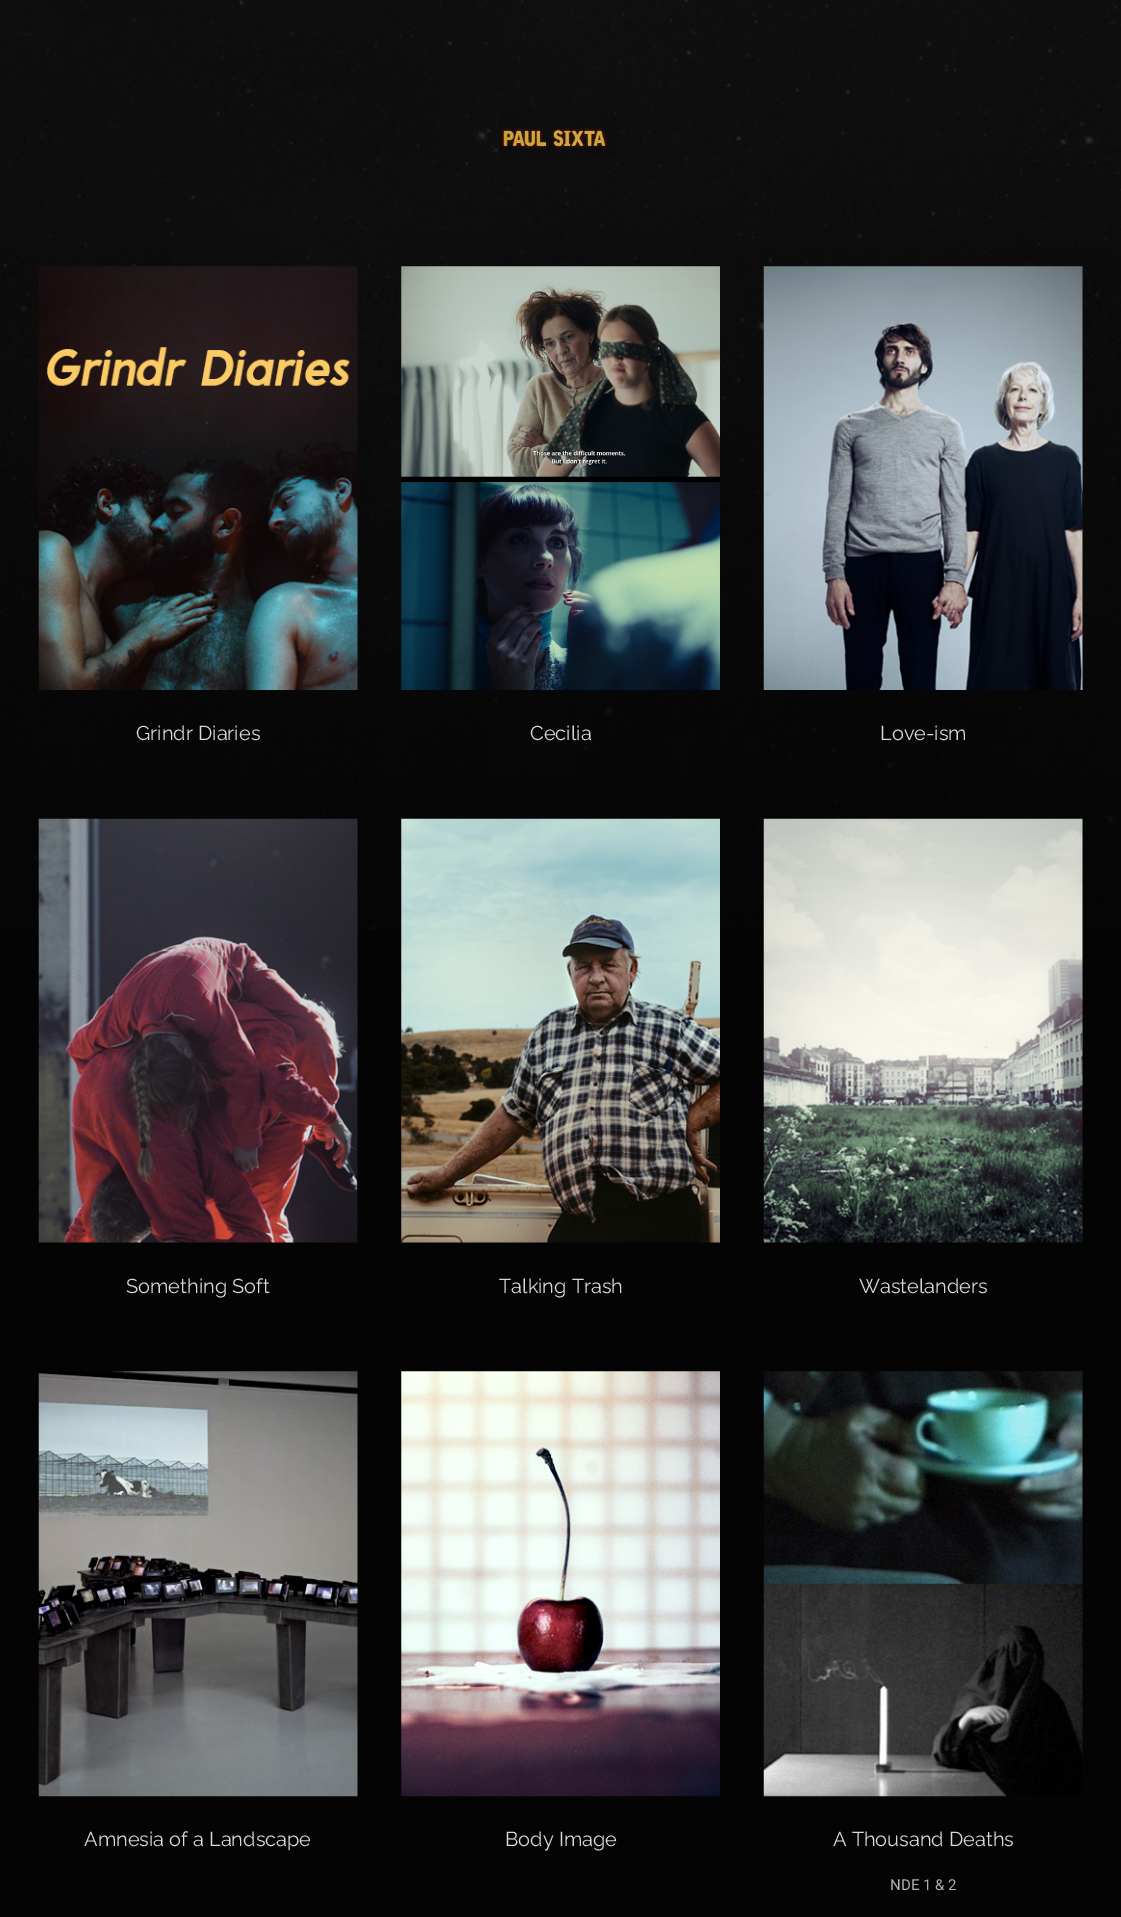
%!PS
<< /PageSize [1121 1917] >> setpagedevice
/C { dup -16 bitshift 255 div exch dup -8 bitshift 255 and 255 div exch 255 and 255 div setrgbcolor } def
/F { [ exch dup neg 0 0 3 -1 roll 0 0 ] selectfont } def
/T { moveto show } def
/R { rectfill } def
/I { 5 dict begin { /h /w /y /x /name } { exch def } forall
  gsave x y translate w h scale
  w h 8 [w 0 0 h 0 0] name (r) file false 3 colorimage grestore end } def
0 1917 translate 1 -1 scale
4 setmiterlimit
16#040404 C
0 0 1121 1917 R
(1.rgb) 0 0 1121 930 I
(2.rgb) 499 112 118 46 I
(3.rgb) 38 266 320 424 I
/Raleway-Regular 20 F
16#D9D9D9 C
(Grindr Diaries) 136 740 T
(4.rgb) 401 266 319 424 I
(Cecilia) 530 740 T
(5.rgb) 763 266 320 424 I
(Love-ism) 880 740 T
(6.rgb) 38 818 320 425 I
(Something Soft) 126 1293 T
(7.rgb) 401 818 319 425 I
(Talking Trash) 499 1293 T
(8.rgb) 763 818 320 425 I
(Wastelanders) 859 1293 T
(9.rgb) 38 1371 320 426 I
(Amnesia of a Landscape) 84 1846 T
(10.rgb) 401 1371 319 426 I
(Body Image) 505 1846 T
(11.rgb) 763 1371 320 426 I
(A Thousand Deaths) 833 1846 T
/Roboto-Regular 15 F
16#B0B0B0 C
(NDE 1 & 2) 890 1890 T
showpage
